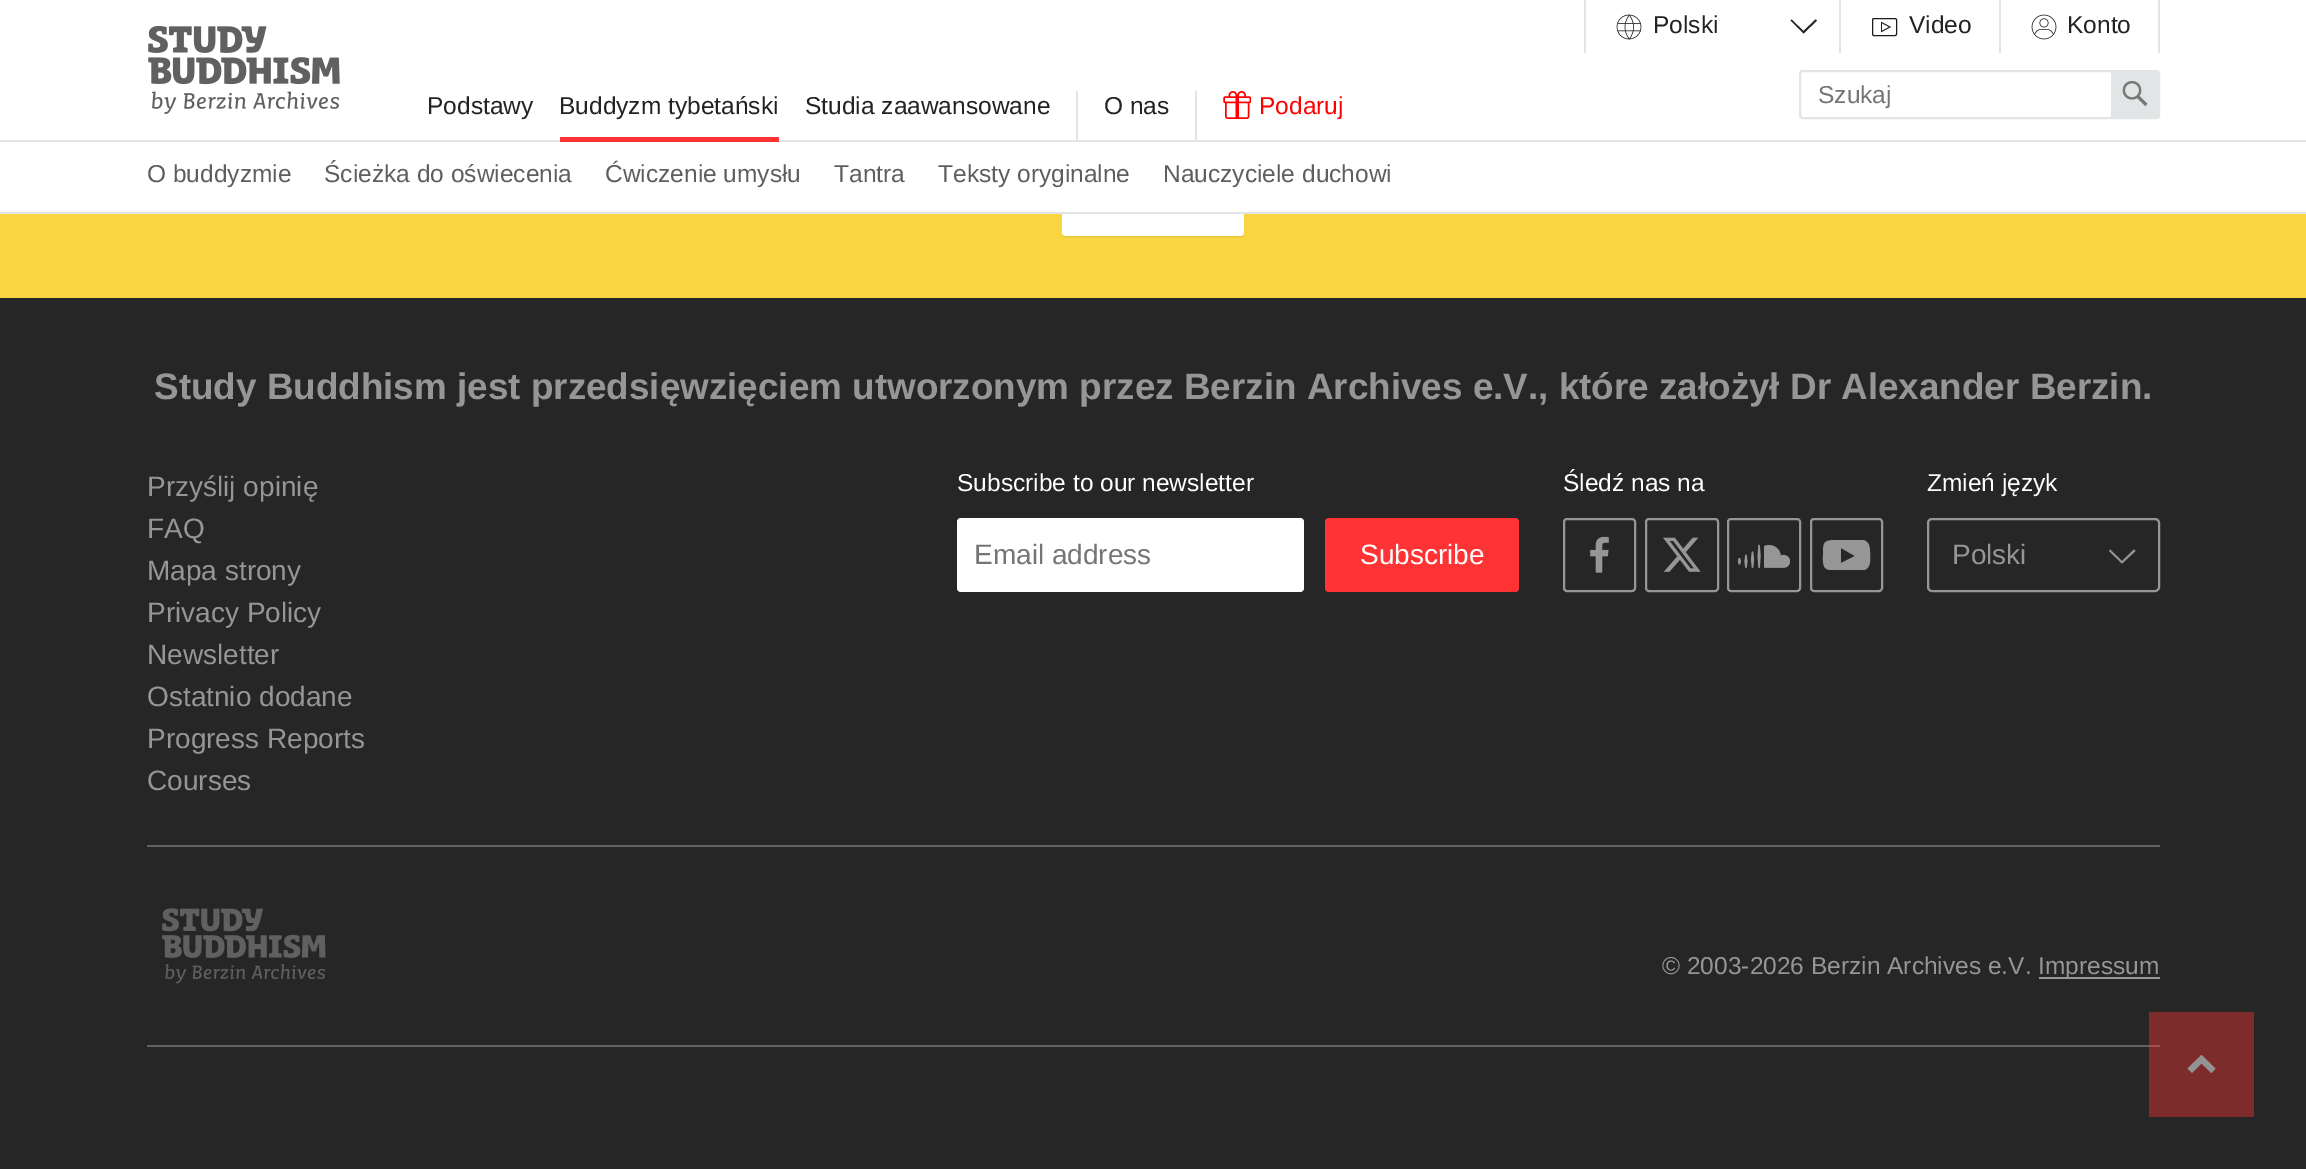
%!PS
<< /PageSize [2306 1169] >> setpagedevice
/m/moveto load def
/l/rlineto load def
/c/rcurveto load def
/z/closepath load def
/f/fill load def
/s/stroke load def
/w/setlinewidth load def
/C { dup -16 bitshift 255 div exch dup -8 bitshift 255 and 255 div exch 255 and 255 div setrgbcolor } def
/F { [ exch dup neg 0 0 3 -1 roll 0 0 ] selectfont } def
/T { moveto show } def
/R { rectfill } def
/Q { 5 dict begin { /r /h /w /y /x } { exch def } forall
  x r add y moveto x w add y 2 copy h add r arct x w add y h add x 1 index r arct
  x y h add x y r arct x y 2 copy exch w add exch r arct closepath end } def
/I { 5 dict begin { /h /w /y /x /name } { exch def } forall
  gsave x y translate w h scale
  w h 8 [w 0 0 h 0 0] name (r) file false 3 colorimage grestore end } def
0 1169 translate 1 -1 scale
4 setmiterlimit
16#F9D542 C
0 0 2306 1169 R
16#FFFFFF C
0 0 2306 140 R
16#E1E5E5 C
0 140 2306 2 R
1584 0 2 53 R
(1.rgb) 1616 14 26 26 I
/LiberationSans-Regular 24.5 F
16#222222 C
(Polski) 1653 33 T
1791.5 19.5 m 12 11.5 l 12 -11.5 l 1.5 1 l -13.5 13 l -13 -13 l z f
16#E1E5E5 C
1839 0 2 53 R
16#1D1D1B C
1872.5 18.5 24 17 1.5 Q s
16#222222 C
(Video) 1909 33 T
16#1D1D1B C
.8 w
1881.5 22.5 m 0 9 l 8.5 -4.5 l z s
16#E1E5E5 C
2158 0 2 53 R
1999 0 2 53 R
(2.rgb) 2031 14 26 26 I
16#222222 C
(Konto) 2067 33 T
16#FF3333 C
560 137 219 5 R
16#222222 C
(Buddyzm tybetański) 559 114 T
16#EDCA3F C
1062 187 m 0 47 l 0 2 2 4 4 4 c 174 0 l 2 0 4 -2 4 -4 c -1 1 -2 2 -3 2 c -175 0 l -2 0 -4 -1 -4 -3 c z f
16#FFFFFF C
1062 182 182 54 4 Q f
0 142 2306 70 R
16#5E5E5E C
(O buddyzmie) 147 182 T
(Ścieżka do oświecenia) 324 182 T
(Ćwiczenie umysłu) 605 182 T
(Tantra) 834 182 T
(Teksty oryginalne) 938 182 T
(Nauczyciele duchowi) 1163 182 T
16#222222 C
(Podstawy) 427 114 T
(Studia zaawansowane) 805 114 T
16#E1E5E5 C
1076 91 2 51 R
16#222222 C
(O nas) 1104 114 T
16#E1E5E5 C
1195 91 2 51 R
(3.rgb) 1223 91 28 28 I
16#FF0000 C
(Podaruj) 1259 114 T
(4.rgb) 148 26 192 88 I
16#E1E5E5 C
2 w
1800 71 359 47 3 Q s
16#757575 C
(Szukaj) 1818 103 T
16#E1E5E5 C
2111 70 m 45 0 l 2 0 4 2 4 4 c 0 41 l 0 2 -2 4 -4 4 c -45 0 l z f
(5.rgb) 2122 81 26 26 I
0 212 2306 2 R
16#262626 C
0 298 2306 871 R
16#7D2B2B C
2149 1012 105 105 R
/LiberationSans-Bold 36.85 F
16#969696 C
(Study Buddhism jest przedsięwzięciem utworzonym przez Berzin Archives e.V., które założył Dr Alexander Berzin.) 154 399 T
/LiberationSans-Regular 28 F
(Przyślij opinię) 147 496 T
(FAQ) 147 538 T
(Mapa strony) 147 580 T
(Privacy Policy) 147 622 T
(Newsletter) 147 664 T
(Ostatnio dodane) 147 706 T
(Progress Reports) 147 748 T
(Courses) 147 790 T
/LiberationSans-Regular 24.5 F
16#FFFFFF C
(Subscribe to our newsletter) 957 491 T
957 518 347 74 4 Q f
/LiberationSans-Regular 28 F
16#757575 C
(Email address) 974 564 T
16#FF3333 C
1325 518 194 74 4 Q f
16#FFFFFF C
(Subscribe) 1360 564 T
/LiberationSans-Regular 24.5 F
(Śledź nas na) 1563 491 T
16#969696 C
1564 519 71 72 3 Q s
(6.rgb) 1590 536 19 37 I
1646 519 72 72 3 Q s
(7.rgb) 1663 537 38 35 I
1728 519 72 72 3 Q s
(8.rgb) 1738 544 52 24 I
1811 519 71 72 3 Q s
1862 540 m -26 0 l -13 0 -13 3 -13 15 c 0 7 -1 15 8 15 c 33 0 l 8 -2 6 -13 6 -19 c 0 -5 -2 -11 -8 -11 c z 1841 563 m 0 -15 l 14 8 l z f
16#FFFFFF C
(Zmień język) 1927 491 T
16#969696 C
1928 519 231 72 4 Q s
/LiberationSans-Regular 28 F
(Polski) 1952 564 T
2110 549.5 m 12 11.5 l 12 -11.5 l 1.5 1.5 l -13.5 12.5 l -13 -12.5 l z f
16#636363 C
147 845 2013 2 R
147 1045 2002 2 R
16#A15050 C
2149 1045 11 2 R
(9.rgb) 162 908 164 76 I
/LiberationSans-Regular 24.5 F
16#969696 C
(© 2003-2026 Berzin Archives e.V.) 1662 974 T
2039 977 121 2 R
(Impressum) 2038 974 T
16#939393 C
2201.5 1055 m 14 13.5 l -4 4.5 l -10 -9.5 l -9.5 9.5 l -4.5 -4.5 l z f
showpage
